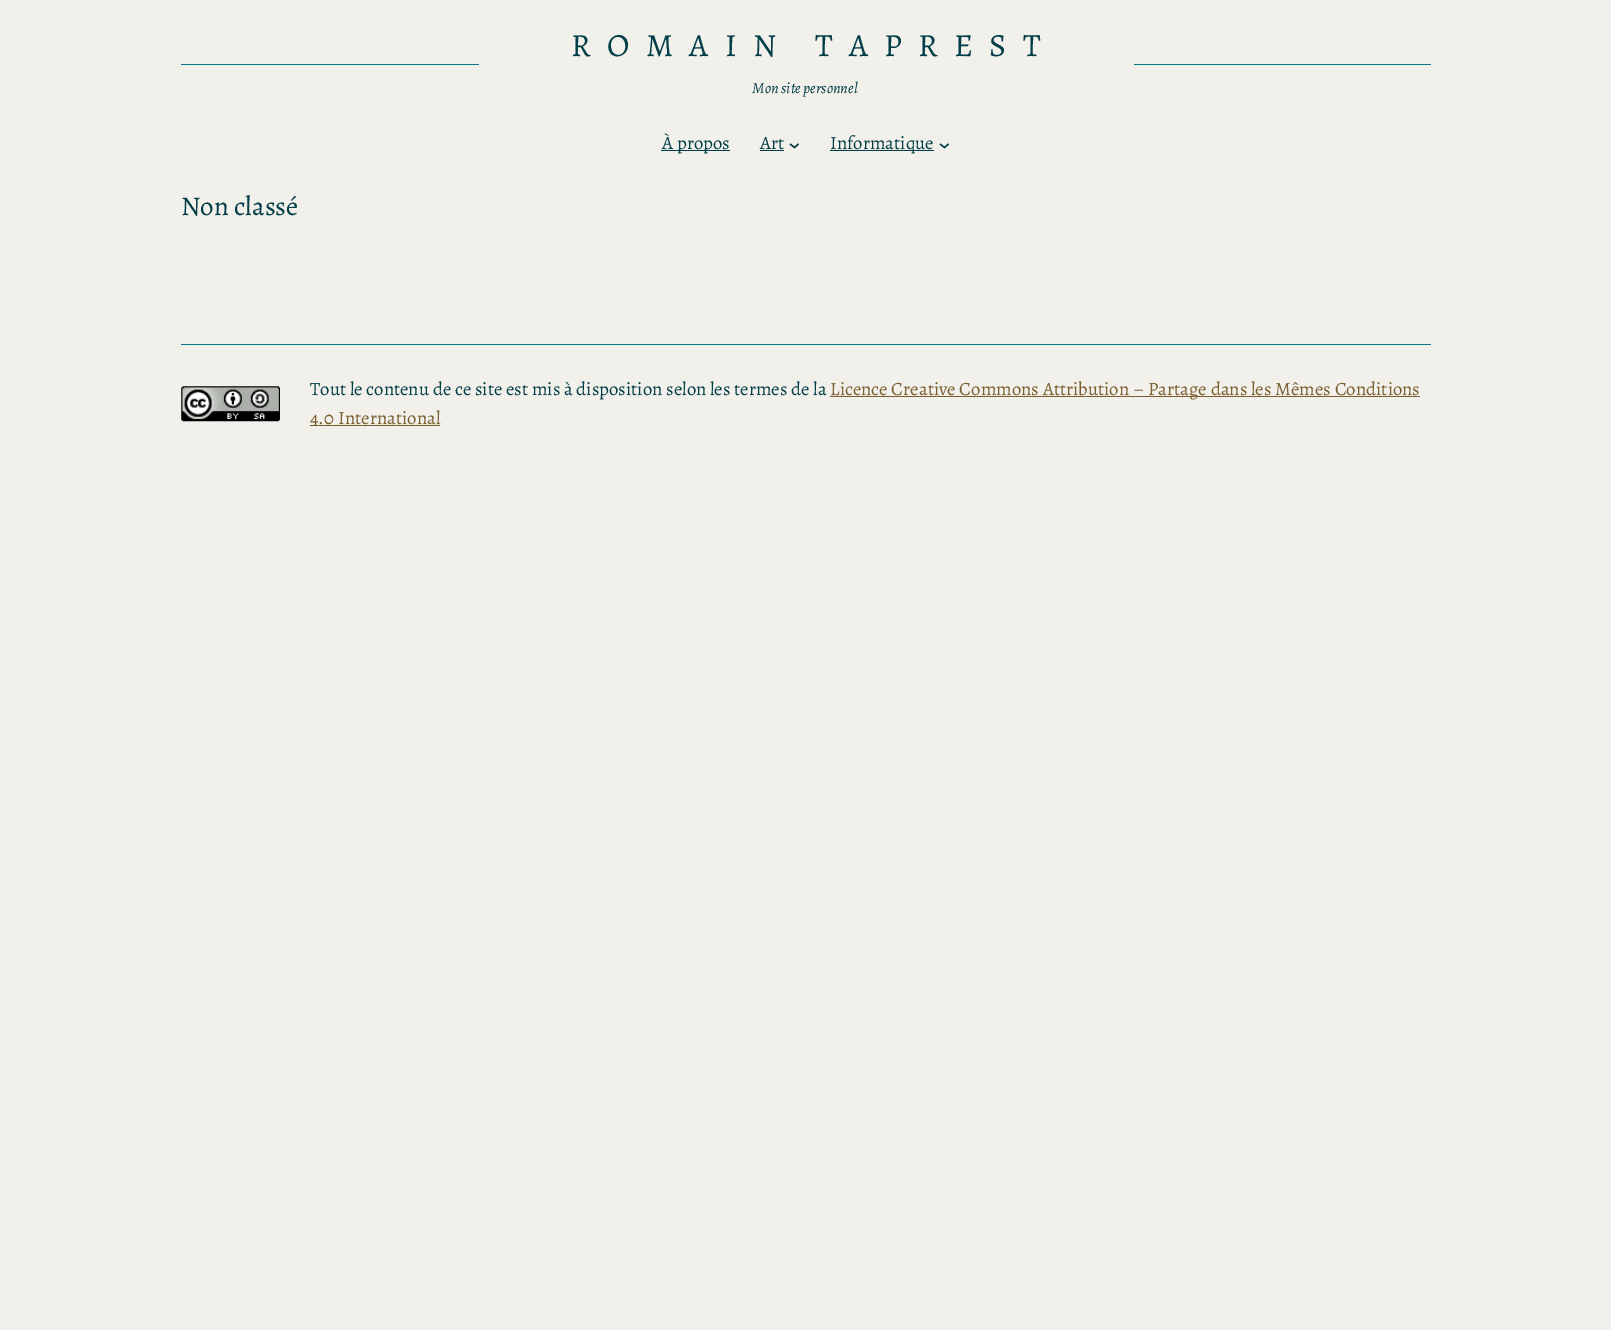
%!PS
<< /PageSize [1611 1330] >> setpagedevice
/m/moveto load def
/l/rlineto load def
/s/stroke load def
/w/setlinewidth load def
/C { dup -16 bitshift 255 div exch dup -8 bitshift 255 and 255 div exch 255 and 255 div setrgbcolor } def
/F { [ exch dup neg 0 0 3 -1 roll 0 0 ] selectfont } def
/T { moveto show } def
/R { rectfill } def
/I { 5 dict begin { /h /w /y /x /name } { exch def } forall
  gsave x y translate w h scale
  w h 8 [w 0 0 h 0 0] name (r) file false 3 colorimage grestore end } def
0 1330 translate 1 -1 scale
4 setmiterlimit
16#F2F0EA C
0 0 1611 1330 R
16#097889 C
181 64 298 1 R
/Alegreya-Regular 32.4 F
16#023E47 C
571 56 m 16.25 0 (ROMAIN TAPREST) ashow
/Alegreya-Italic 15.5 F
(Mon site personnel) 752 93 T
16#097889 C
1134 64 297 1 R
16#023E47 C
661 150 69 1 R
/Alegreya-Regular 18.75 F
(À propos) 662 149 T
(Art) 760 149 T
760 150 24 1 R
1.4 w
790 144 m 4.5 3.5 l 4 -3.5 l s
830 150 104 1 R
(Informatique) 830 149 T
940 144 m 4.5 3.5 l 4 -3.5 l s
/Alegreya-Regular 27 F
(Non classé) 181 215 T
16#097889 C
181 344 1250 1 R
(1.rgb) 181 386 99 36 I
/Alegreya-Regular 18.75 F
16#023E47 C
(Tout le contenu de ce site est mis à disposition selon les termes de la) 310 395 T
16#7A5E2F C
830 396 590 1 R
(Licence Creative Commons Attribution – Partage dans les Mêmes Conditions) 830 395 T
310 425 130 1 R
(4.0 International) 310 424 T
showpage
